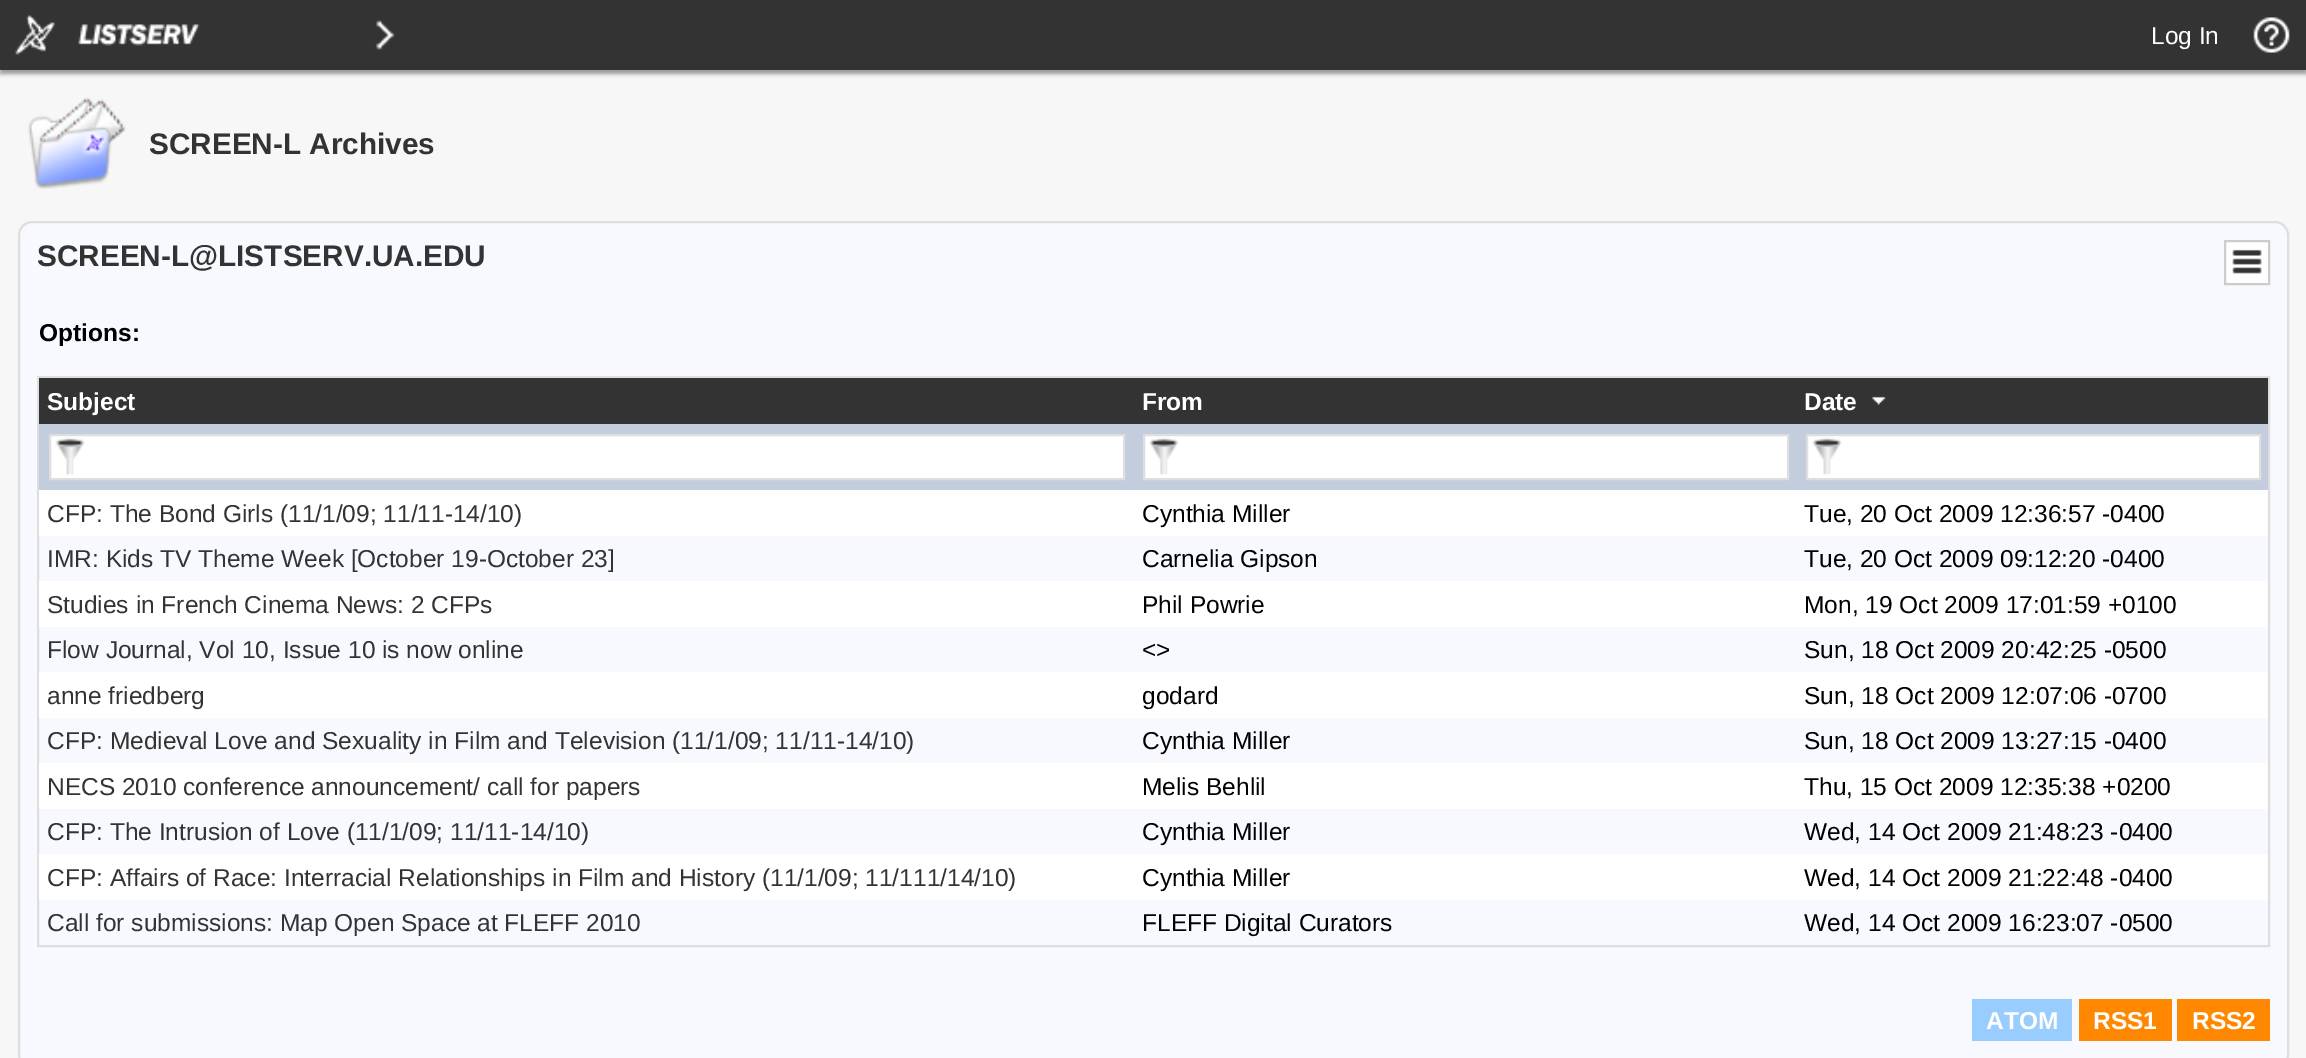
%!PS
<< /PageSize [2306 1058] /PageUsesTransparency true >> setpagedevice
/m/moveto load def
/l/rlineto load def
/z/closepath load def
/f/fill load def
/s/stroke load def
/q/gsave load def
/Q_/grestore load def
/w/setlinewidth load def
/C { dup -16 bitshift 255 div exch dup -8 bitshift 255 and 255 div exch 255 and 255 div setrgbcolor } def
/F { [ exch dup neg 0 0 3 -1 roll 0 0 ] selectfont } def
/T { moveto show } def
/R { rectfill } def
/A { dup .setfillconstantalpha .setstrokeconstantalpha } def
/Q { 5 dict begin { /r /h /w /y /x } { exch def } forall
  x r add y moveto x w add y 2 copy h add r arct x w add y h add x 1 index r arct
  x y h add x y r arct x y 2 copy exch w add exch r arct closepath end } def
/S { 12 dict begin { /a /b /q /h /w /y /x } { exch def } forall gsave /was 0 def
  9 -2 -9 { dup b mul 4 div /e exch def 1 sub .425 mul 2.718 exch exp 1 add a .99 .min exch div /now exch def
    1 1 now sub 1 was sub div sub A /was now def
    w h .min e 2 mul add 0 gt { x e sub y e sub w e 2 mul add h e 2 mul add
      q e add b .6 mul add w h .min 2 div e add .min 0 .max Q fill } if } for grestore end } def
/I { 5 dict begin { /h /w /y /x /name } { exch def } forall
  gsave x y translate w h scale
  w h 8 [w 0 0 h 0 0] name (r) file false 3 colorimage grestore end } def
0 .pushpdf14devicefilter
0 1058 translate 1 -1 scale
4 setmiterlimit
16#F7F7F7 C
0 0 2306 1058 R
16#999999 C
0 4 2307 70 0 2 1 S
16#333333 C
0 0 2306 70 R
(1.rgb) 15 15 40 40 I
(2.rgb) 78 24 122 22 I
(3.rgb) 375 20 20 30 I
/LiberationSans-Regular 24.5 F
16#FFFFFF C
(Log In) 2151 44 T
(4.rgb) 2253 17 37 36 I
(5.rgb) 28 97 98 92 I
/LiberationSans-Bold 29.75 F
16#333333 C
(SCREEN-L Archives) 149 154 T
16#F7F9FE C
19 222 2269 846 13 Q q f Q_
16#DEDEDE C
2 w
s
16#333333 C
(SCREEN-L@LISTSERV.UA.EDU) 37 266 T
16#FFFFFF C
2225 241 m 44 0 l 0 43 l -44 0 l z q f Q_
16#CCCCCC C
s
(6.rgb) 2232 249 30 25 I
/LiberationSans-Bold 24.5 F
16#000000 C
(Options:) 39 341 T
16#DEDEDE C
38 377 2231 569 rectstroke
16#333333 C
39 378 2229 46 R
16#FFFFFF C
(Subject) 47 410 T
(From) 1142 410 T
(Date) 1804 410 T
(7.rgb) 1872 396 14 9 I
16#C4CDDE C
39 424 2229 66 R
16#FFFFFF C
51 436 1072 42 R
(8.rgb) 55 437 30 38 I
16#DEDEDE C
50 435 1074 44 rectstroke
16#FFFFFF C
1145 436 642 42 R
(9.rgb) 1149 437 30 38 I
16#DEDEDE C
1144 435 644 44 rectstroke
16#FFFFFF C
1808 436 451 42 R
(8.rgb) 1812 437 30 38 I
16#DEDEDE C
1807 435 453 44 rectstroke
16#FFFFFF C
39 490 2229 46 R
/LiberationSans-Regular 24.5 F
16#333333 C
(CFP: The Bond Girls \(11/1/09; 11/11-14/10\)) 47 522 T
16#000000 C
(Cynthia Miller) 1142 522 T
(Tue, 20 Oct 2009 12:36:57 -0400) 1804 522 T
16#333333 C
(IMR: Kids TV Theme Week [October 19-October 23]) 47 567 T
16#000000 C
(Carnelia Gipson) 1142 567 T
(Tue, 20 Oct 2009 09:12:20 -0400) 1804 567 T
16#FFFFFF C
39 581 2229 46 R
16#333333 C
(Studies in French Cinema News: 2 CFPs) 47 613 T
16#000000 C
(Phil Powrie) 1142 613 T
(Mon, 19 Oct 2009 17:01:59 +0100) 1804 613 T
16#333333 C
(Flow Journal, Vol 10, Issue 10 is now online) 47 658 T
16#000000 C
(<>) 1142 658 T
(Sun, 18 Oct 2009 20:42:25 -0500) 1804 658 T
16#FFFFFF C
39 672 2229 46 R
16#333333 C
(anne friedberg) 47 704 T
16#000000 C
(godard) 1142 704 T
(Sun, 18 Oct 2009 12:07:06 -0700) 1804 704 T
16#333333 C
(CFP: Medieval Love and Sexuality in Film and Television \(11/1/09; 11/11-14/10\)) 47 749 T
16#000000 C
(Cynthia Miller) 1142 749 T
(Sun, 18 Oct 2009 13:27:15 -0400) 1804 749 T
16#FFFFFF C
39 763 2229 46 R
16#333333 C
(NECS 2010 conference announcement/ call for papers) 47 795 T
16#000000 C
(Melis Behlil) 1142 795 T
(Thu, 15 Oct 2009 12:35:38 +0200) 1804 795 T
16#333333 C
(CFP: The Intrusion of Love \(11/1/09; 11/11-14/10\)) 47 840 T
16#000000 C
(Cynthia Miller) 1142 840 T
(Wed, 14 Oct 2009 21:48:23 -0400) 1804 840 T
16#FFFFFF C
39 854 2229 46 R
16#333333 C
(CFP: Affairs of Race: Interracial Relationships in Film and History \(11/1/09; 11/111/14/10\)) 47 886 T
16#000000 C
(Cynthia Miller) 1142 886 T
(Wed, 14 Oct 2009 21:22:48 -0400) 1804 886 T
16#333333 C
(Call for submissions: Map Open Space at FLEFF 2010) 47 931 T
16#000000 C
(FLEFF Digital Curators) 1142 931 T
(Wed, 14 Oct 2009 16:23:07 -0500) 1804 931 T
16#99CCFF C
1972 999 100 42 R
/LiberationSans-Bold 24.5 F
16#FFFFFF C
(ATOM) 1986 1029 T
16#FF8800 C
2079 999 93 42 R
16#FFFFFF C
(RSS1) 2093 1029 T
16#FF8800 C
2177 999 93 42 R
16#FFFFFF C
(RSS2) 2192 1029 T
.poppdf14devicefilter showpage
